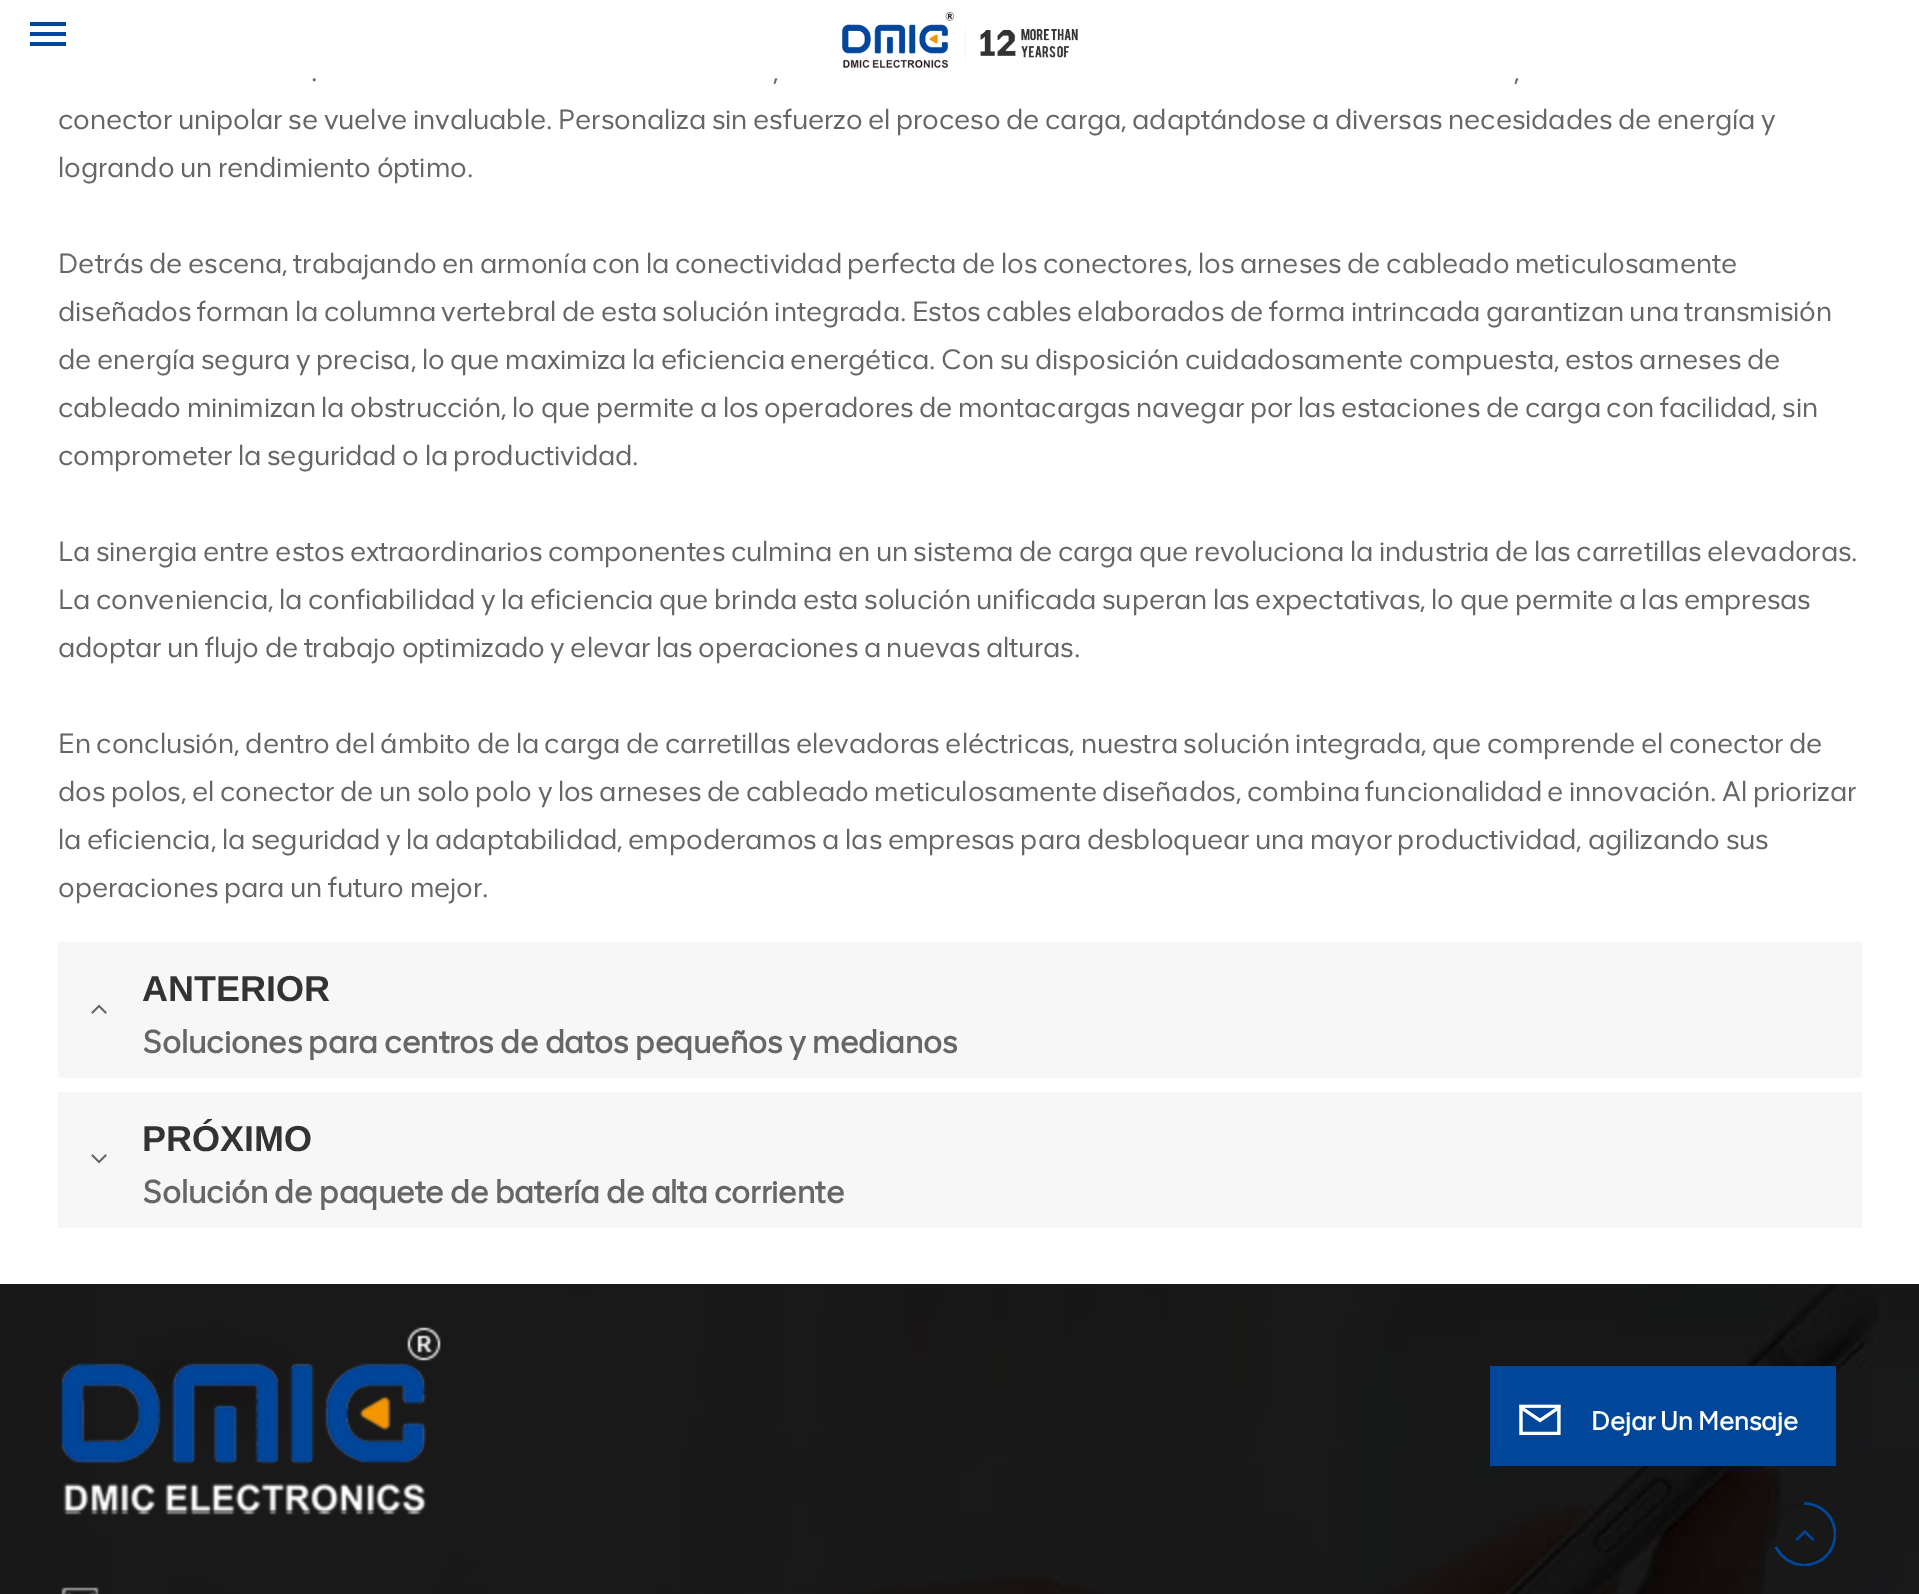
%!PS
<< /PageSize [1919 1594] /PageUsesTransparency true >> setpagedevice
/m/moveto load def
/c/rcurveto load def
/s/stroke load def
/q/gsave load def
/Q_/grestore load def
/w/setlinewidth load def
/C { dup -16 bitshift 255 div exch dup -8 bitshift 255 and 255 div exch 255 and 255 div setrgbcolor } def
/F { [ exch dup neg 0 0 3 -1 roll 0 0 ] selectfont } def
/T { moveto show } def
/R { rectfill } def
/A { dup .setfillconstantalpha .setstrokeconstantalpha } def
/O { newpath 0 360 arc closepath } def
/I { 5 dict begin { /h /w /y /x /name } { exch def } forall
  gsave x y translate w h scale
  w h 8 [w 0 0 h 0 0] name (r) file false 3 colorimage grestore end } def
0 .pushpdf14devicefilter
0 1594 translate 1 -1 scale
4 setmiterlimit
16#FFFFFF C
0 0 1919 1594 R
16#00469B C
30 22 36 4 R
30 32 36 4 R
30 42 36 4 R
(1.rgb) 841 11 237 57 I
/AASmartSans-Regular 28 F
16#666666 C
(.) 311 81 T
(,) 773 81 T
(,) 1514 81 T
(conector unipolar se vuelve invaluable. Personaliza sin esfuerzo el proceso de carga, adaptándose a diversas necesidades de energía y) 58 129 T
(logrando un rendimiento óptimo.) 58 177 T
(Detrás de escena, trabajando en armonía con la conectividad perfecta de los conectores, los arneses de cableado meticulosamente) 58 273 T
(diseñados forman la columna vertebral de esta solución integrada. Estos cables elaborados de forma intrincada garantizan una transmisión) 58 321 T
(de energía segura y precisa, lo que maximiza la eficiencia energética. Con su disposición cuidadosamente compuesta, estos arneses de) 58 369 T
(cableado minimizan la obstrucción, lo que permite a los operadores de montacargas navegar por las estaciones de carga con facilidad, sin) 58 417 T
(comprometer la seguridad o la productividad.) 58 465 T
(La sinergia entre estos extraordinarios componentes culmina en un sistema de carga que revoluciona la industria de las carretillas elevadoras.) 58 561 T
(La conveniencia, la confiabilidad y la eficiencia que brinda esta solución unificada superan las expectativas, lo que permite a las empresas) 58 609 T
(adoptar un flujo de trabajo optimizado y elevar las operaciones a nuevas alturas.) 58 657 T
(En conclusión, dentro del ámbito de la carga de carretillas elevadoras eléctricas, nuestra solución integrada, que comprende el conector de) 58 753 T
(dos polos, el conector de un solo polo y los arneses de cableado meticulosamente diseñados, combina funcionalidad e innovación. Al priorizar) 58 801 T
(la eficiencia, la seguridad y la adaptabilidad, empoderamos a las empresas para desbloquear una mayor productividad, agilizando sus) 58 849 T
(operaciones para un futuro mejor.) 58 897 T
16#F7F7F7 C
58 942 1804 136 R
/LiberationSans-Bold 36 F
16#333333 C
(ANTERIOR) 142 1001 T
(2.rgb) 91 1004 16 10 I
/AASmartSans-Bold 32 F
16#666666 C
(Soluciones para centros de datos pequeños y medianos) 142 1053 T
16#F7F7F7 C
58 1092 1804 136 R
/LiberationSans-Bold 36 F
16#333333 C
(PRÓXIMO) 142 1151 T
(3.rgb) 91 1154 16 10 I
/AASmartSans-Bold 32 F
16#666666 C
(Solución de paquete de batería de alta corriente) 142 1203 T
(4.rgb) 0 1284 1919 310 I
(5.rgb) 61 1327 380 188 I
(6.rgb) 61 1587 38 7 I
16#00469B C
1490 1366 346 100 R
(7.rgb) 1519 1404 42 31 I
/AASmartSans-Bold 26 F
16#FFFFFF C
(Dejar Un Mensaje) 1591 1430 T
0.1 A
16#000000 C
4 w
1804 1534 30 O s
q
1772 1502 64 64 rectclip
1 A
16#00469B C
2.5 w
1804 1503.5 m 17.5 0 31 13.5 31 30.5 c 0 17.5 -13.5 31 -31 31 c -12.5 0 -23 -7.5 -28 -18 c s
Q_
1 A
(8.rgb) 1795 1530 20 11 I
.poppdf14devicefilter showpage
